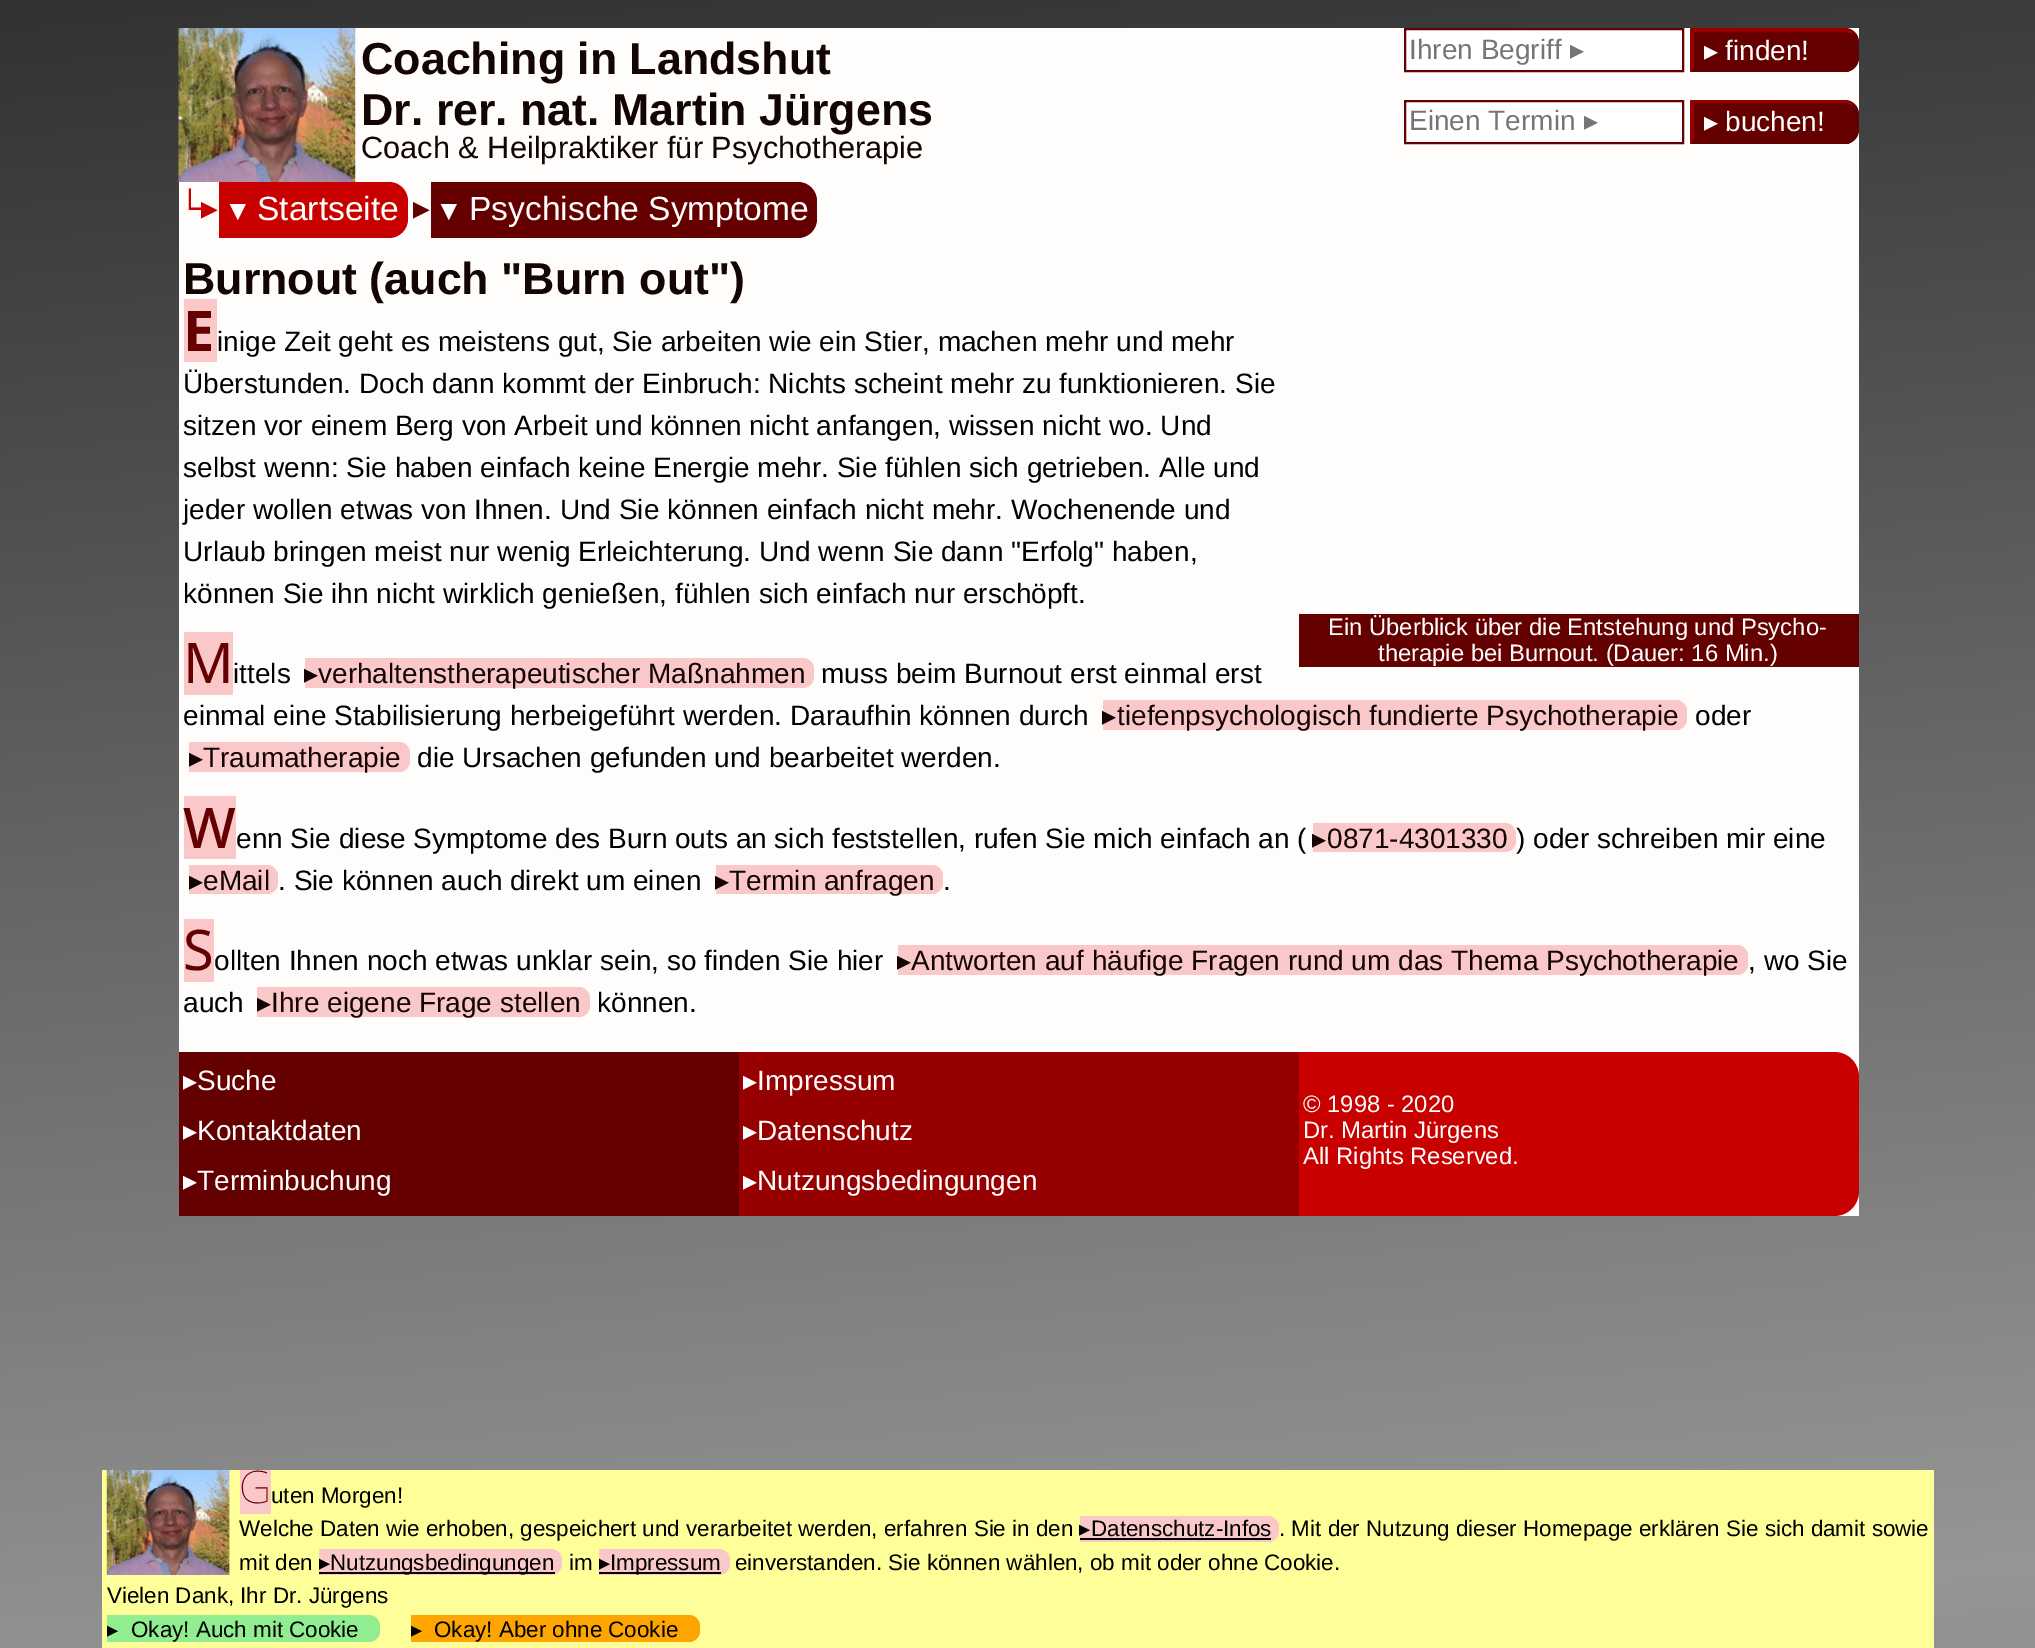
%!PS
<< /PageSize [2035 1648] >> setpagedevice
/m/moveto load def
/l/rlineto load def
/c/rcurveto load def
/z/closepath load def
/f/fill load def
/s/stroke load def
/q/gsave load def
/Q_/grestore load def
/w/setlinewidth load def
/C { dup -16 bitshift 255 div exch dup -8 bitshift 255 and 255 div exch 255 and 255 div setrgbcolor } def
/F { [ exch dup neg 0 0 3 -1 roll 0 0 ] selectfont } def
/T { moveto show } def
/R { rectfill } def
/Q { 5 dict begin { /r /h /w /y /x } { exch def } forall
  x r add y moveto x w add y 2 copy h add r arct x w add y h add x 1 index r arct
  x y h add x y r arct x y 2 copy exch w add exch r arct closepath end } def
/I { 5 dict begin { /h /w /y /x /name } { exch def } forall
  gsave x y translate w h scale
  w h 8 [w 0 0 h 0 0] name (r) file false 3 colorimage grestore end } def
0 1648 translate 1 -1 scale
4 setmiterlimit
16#FFFFFF C
0 0 2035 1648 R
q 0 0 m 2035 0 l 0 1648 l -2035 0 l z clip newpath
<< /ShadingType 2 /ColorSpace /DeviceRGB /Coords [867 -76 1168 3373] /Extend [true true] /Function << /FunctionType 3 /Domain [0 1] /Functions [<< /FunctionType 2 /Domain [0 1] /C0 [.196 .196 .196] /C1 [.588 .588 .588] /N 1 >> << /FunctionType 2 /Domain [0 1] /C0 [.588 .588 .588] /C1 [.196 .196 .196] /N 1 >>] /Bounds [.5] /Encode [0 1 0 1] >> >> shfill Q_
16#FFFCFC C
179 28 1680 1188 R
(1.rgb) 178 28 178 154 I
/LiberationSans-Bold 44.75 F
16#140505 C
(Coaching in Landshut) 361 74 T
(Dr. rer. nat. Martin Jürgens) 361 125 T
/LiberationSans-Regular 30.75 F
(Coach & Heilpraktiker für Psychotherapie) 361 158 T
16#FFFFFF C
1405 29 m 278 0 l 0 42 l -278 0 l z q f Q_
16#640000 C
2 w
s
/LiberationSans-Regular 28 F
16#757575 C
(Ihren Begriff) 1409 59 T
/DejaVuSans-Regular 28 F
(▸) 1570 59 T
16#640000 C
1691 28 m 154 0 l 7.5 0 14 6.5 14 14 c 0 16 l 0 7.5 -6.5 14 -14 14 c -154 0 l z f
16#960000 C
1690 28 m 4 4 l 150 0 l 3 0 6 1 8 3 c 2 -3 l -2 -2 -6 -4 -10 -4 c z f
16#640000 C
1854 32.5 m 5 4.5 4 11.5 4 17.5 c 0 6.5 .5 12.5 -4 17.5 c -2 -2.5 l 4 -3.5 3 -10 3 -15 c 0 -5 1 -11.5 -3 -15 c z f
1854 67 m -2 3 -4 4 -7 5 c -157 0 l 4 -4 l 150 0 l 3 0 6 -1 8 -3 c z f
16#960000 C
1694 32 m -4 -4 l 0 44 l 4 -4 l z f
16#FFFFFF C
(▸) 1704 60 T
/LiberationSans-Regular 28 F
(finden!) 1725 60 T
1405 101 m 278 0 l 0 42 l -278 0 l z q f Q_
16#640000 C
s
16#757575 C
(Einen Termin) 1409 130 T
/DejaVuSans-Regular 28 F
(▸) 1584 130 T
16#640000 C
1691 100 m 154 0 l 7.5 0 14 6.5 14 14 c 0 16 l 0 7.5 -6.5 14 -14 14 c -154 0 l z f
16#960000 C
1694 103 m 150 0 l 3 0 6 1 8 3 c 2 -2 l -2 -2 -6 -4 -10 -4 c -153 0 l z f
16#640000 C
1854 104 m 5 5 4 11.5 4 18 c 0 6 .5 12.5 -3.5 17.5 c -2.5 -2.5 l 4 -4 3 -9.5 3 -15 c 0 -5.5 1 -11.5 -3 -15.5 c z f
1854 139 m -1 2 -4 4 -6 5 c -158 0 l 4 -4 l 150 0 l 3 0 6 -1 8 -3 c z f
16#960000 C
1690 144 m 4 -4 l 0 -37 l -4 -3 l z f
16#FFFFFF C
(▸) 1704 131 T
/LiberationSans-Regular 28 F
(buchen!) 1725 131 T
16#C80000 C
179 182 229 56 19 Q f
16#FFFCFC C
179 182 40 56 R
/LiberationSans-Regular 33.6 F
16#C80000 C
(└) 178 219 T
/DejaVuSans-Regular 33.6 F
(▸) 201 219 T
/LiberationSans-Regular 28 F
16#FFFFFF C
(▼) 224 220 T
/LiberationSans-Regular 33.6 F
(Startseite) 257 220 T
16#640000 C
413 182 404 56 19 Q f
16#FFFCFC C
413 182 18 56 R
/DejaVuSans-Regular 33.6 F
16#640000 C
(▸) 413 219 T
/LiberationSans-Regular 28 F
16#FFFFFF C
(▼) 435 220 T
/LiberationSans-Regular 33.6 F
(Psychische Symptome) 469 220 T
/LiberationSans-Bold 44.75 F
16#140505 C
(Burnout \(auch "Burn out"\)) 183 294 T
16#FAC8C8 C
184 299 33 63 R
/NotoSans-Bold 56 F
16#640000 C
(E) 183 351 T
/LiberationSans-Regular 28 F
16#000000 C
(inige Zeit geht es meistens gut, Sie arbeiten wie ein Stier, machen mehr und mehr) 217 351 T
(Überstunden. Doch dann kommt der Einbruch: Nichts scheint mehr zu funktionieren. Sie) 183 393 T
(sitzen vor einem Berg von Arbeit und können nicht anfangen, wissen nicht wo. Und) 183 435 T
(selbst wenn: Sie haben einfach keine Energie mehr. Sie fühlen sich getrieben. Alle und) 183 477 T
(jeder wollen etwas von Ihnen. Und Sie können einfach nicht mehr. Wochenende und) 183 519 T
(Urlaub bringen meist nur wenig Erleichterung. Und wenn Sie dann "Erfolg" haben,) 183 561 T
(können Sie ihn nicht wirklich genießen, fühlen sich einfach nur erschöpft.) 183 603 T
16#640000 C
1299 614 560 53 R
/LiberationSans-Regular 23.8 F
16#FFFFFF C
(Ein Überblick über die Entstehung und Psycho-) 1328 635 T
(therapie bei Burnout. \(Dauer: 16 Min.\)) 1378 661 T
16#FAC8C8 C
184 632 49 63 R
/NotoSans-Regular 56 F
16#640000 C
(M) 183 683 T
/LiberationSans-Regular 28 F
16#000000 C
(ittels) 233 683 T
16#FAC8C8 C
305 658 14 30 R
/DejaVuSans-Regular 28 F
16#140505 C
(▸) 304 683 T
16#FAC8C8 C
319 658 m 484 0 l 6 0 11 5 11 11 c 0 8 l 0 6 -5 11 -11 11 c -484 0 l z f
/LiberationSans-Regular 28 F
16#140505 C
(verhaltenstherapeutischer Maßnahmen) 318 683 T
16#000000 C
(muss beim Burnout erst einmal erst) 821 683 T
(einmal eine Stabilisierung herbeigeführt werden. Daraufhin können durch) 183 725 T
16#FAC8C8 C
1103 700 14 30 R
/DejaVuSans-Regular 28 F
16#140505 C
(▸) 1102 725 T
16#FAC8C8 C
1117 700 m 559 0 l 6 0 11 5 11 11 c 0 8 l 0 6 -5 11 -11 11 c -559 0 l z f
/LiberationSans-Regular 28 F
16#140505 C
(tiefenpsychologisch fundierte Psychotherapie) 1117 725 T
16#000000 C
(oder) 1695 725 T
16#FAC8C8 C
189 742 14 30 R
/DejaVuSans-Regular 28 F
16#140505 C
(▸) 189 767 T
16#FAC8C8 C
203 742 m 196 0 l 6 0 11 5 11 11 c 0 8 l 0 6 -5 11 -11 11 c -196 0 l z f
/LiberationSans-Regular 28 F
16#140505 C
(Traumatherapie) 203 767 T
16#000000 C
(die Ursachen gefunden und bearbeitet werden.) 417 767 T
16#FAC8C8 C
184 796 52 63 R
/NotoSans-Medium 56 F
16#640000 C
(W) 183 848 T
/LiberationSans-Regular 28 F
16#000000 C
(enn Sie diese Symptome des Burn outs an sich feststellen, rufen Sie mich einfach an \() 236 848 T
16#FAC8C8 C
1313 823 14 29 R
/DejaVuSans-Regular 28 F
16#140505 C
(▸) 1312 848 T
16#FAC8C8 C
1327 823 m 178 0 l 6 0 11 5 11 11 c 0 7 l 0 6 -5 11 -11 11 c -178 0 l z f
/LiberationSans-Regular 28 F
16#140505 C
(0871-4301330) 1327 848 T
16#000000 C
(\) oder schreiben mir eine) 1516 848 T
16#FAC8C8 C
189 865 14 29 R
/DejaVuSans-Regular 28 F
16#140505 C
(▸) 189 890 T
16#FAC8C8 C
203 865 m 64 0 l 6 0 11 5 11 11 c 0 7 l 0 6 -5 11 -11 11 c -64 0 l z f
/LiberationSans-Regular 28 F
16#140505 C
(eMail) 203 890 T
16#000000 C
(. Sie können auch direkt um einen) 278 890 T
16#FAC8C8 C
716 865 14 29 R
/DejaVuSans-Regular 28 F
16#140505 C
(▸) 715 890 T
16#FAC8C8 C
730 865 m 202 0 l 6 0 11 5 11 11 c 0 7 l 0 6 -5 11 -11 11 c -202 0 l z f
/LiberationSans-Regular 28 F
16#140505 C
(Termin anfragen) 729 890 T
16#000000 C
(.) 943 890 T
16#FAC8C8 C
184 919 30 63 R
/NotoSans-Regular 56 F
16#640000 C
(S) 183 970 T
/LiberationSans-Regular 28 F
16#000000 C
(ollten Ihnen noch etwas unklar sein, so finden Sie hier) 214 970 T
16#FAC8C8 C
898 945 14 30 R
/DejaVuSans-Regular 28 F
16#140505 C
(▸) 897 970 T
16#FAC8C8 C
912 945 m 825 0 l 6 0 11 5 11 11 c 0 8 l 0 6 -5 11 -11 11 c -825 0 l z f
/LiberationSans-Regular 28 F
16#140505 C
(Antworten auf häufige Fragen rund um das Thema Psychotherapie) 911 970 T
16#000000 C
(, wo Sie) 1748 970 T
(auch) 183 1012 T
16#FAC8C8 C
257 987 14 30 R
271 987 m 308 0 l 6 0 11 5 11 11 c 0 8 l 0 6 -5 11 -11 11 c -308 0 l z f
/DejaVuSans-Regular 28 F
16#140505 C
(▸) 257 1012 T
/LiberationSans-Regular 28 F
(Ihre eigene Frage stellen) 271 1012 T
16#000000 C
(können.) 597 1012 T
16#640000 C
179 1052 560 164 R
/DejaVuSans-Regular 28 F
16#FFFFFF C
(▸) 183 1090 T
/LiberationSans-Regular 28 F
(Suche) 197 1090 T
/DejaVuSans-Regular 28 F
(▸) 183 1140 T
/LiberationSans-Regular 28 F
(Kontaktdaten) 197 1140 T
/DejaVuSans-Regular 28 F
(▸) 183 1190 T
/LiberationSans-Regular 28 F
(Terminbuchung) 197 1190 T
16#960000 C
739 1052 560 164 R
/DejaVuSans-Regular 28 F
16#FFFFFF C
(▸) 743 1090 T
/LiberationSans-Regular 28 F
(Impressum) 757 1090 T
/DejaVuSans-Regular 28 F
(▸) 743 1140 T
/LiberationSans-Regular 28 F
(Datenschutz) 757 1140 T
/DejaVuSans-Regular 28 F
(▸) 743 1190 T
/LiberationSans-Regular 28 F
(Nutzungsbedingungen) 757 1190 T
16#C80000 C
1299 1052 m 535 0 l 14 0 25 11 25 25 c 0 114 l 0 14 -11 25 -25 25 c -535 0 l z f
/LiberationSans-Regular 23.8 F
16#FFFFFF C
(© 1998 - 2020) 1303 1112 T
(Dr. Martin Jürgens) 1303 1138 T
(All Rights Reserved.) 1303 1164 T
16#FFFF99 C
102 1470 1832 178 R
(2.rgb) 106 1470 124 105 I
16#FAC8C8 C
240 1470 31 44 R
/NotoSans-Thin 44.75 F
16#640000 C
(G) 239 1503 T
/LiberationSans-Regular 22.4 F
16#000000 C
(uten Morgen!) 271 1503 T
(Welche Daten wie erhoben, gespeichert und verarbeitet werden, erfahren Sie in den) 239 1536 T
16#FAC8C8 C
1080 1516 10 26 R
1090 1516 m 178 0 l 6 0 11 5 11 11 c 0 4 l 0 6 -5 11 -11 11 c -178 0 l z f
/DejaVuSans-Regular 22.4 F
16#000000 C
(▸) 1079 1536 T
1080 1538 191 2 R
/LiberationSans-Regular 22.4 F
(Datenschutz-Infos) 1091 1536 T
(. Mit der Nutzung dieser Homepage erklären Sie sich damit sowie) 1279 1536 T
(mit den) 239 1570 T
16#FAC8C8 C
319 1549 12 26 R
/DejaVuSans-Regular 22.4 F
16#000000 C
(▸) 319 1570 T
16#FAC8C8 C
331 1549 m 220 0 l 6 0 11 5 11 11 c 0 4 l 0 6 -5 11 -11 11 c -220 0 l z f
16#000000 C
319 1572 236 2 R
/LiberationSans-Regular 22.4 F
(Nutzungsbedingungen) 330 1570 T
(im) 569 1570 T
16#FAC8C8 C
599 1549 10 26 R
609 1549 m 110 0 l 6 0 11 5 11 11 c 0 4 l 0 6 -5 11 -11 11 c -110 0 l z f
/DejaVuSans-Regular 22.4 F
16#000000 C
(▸) 599 1570 T
599 1572 122 2 R
/LiberationSans-Regular 22.4 F
(Impressum) 610 1570 T
(einverstanden. Sie können wählen, ob mit oder ohne Cookie.) 735 1570 T
(Vielen Dank, Ihr Dr. Jürgens) 107 1603 T
16#90EE90 C
107 1615 12 27 R
/DejaVuSans-Regular 22.4 F
16#000000 C
(▸) 107 1637 T
16#90EE90 C
119 1615 m 250 0 l 6 0 11 5 11 11 c 0 5 l 0 6 -5 11 -11 11 c -250 0 l z f
/LiberationSans-Regular 22.4 F
16#000000 C
(Okay! Auch mit Cookie) 131 1637 T
16#FFA500 C
411 1615 11 27 R
/DejaVuSans-Regular 22.4 F
16#000000 C
(▸) 411 1637 T
16#FFA500 C
422 1615 m 267 0 l 6 0 11 5 11 11 c 0 5 l 0 6 -5 11 -11 11 c -267 0 l z f
/LiberationSans-Regular 22.4 F
16#000000 C
(Okay! Aber ohne Cookie) 434 1637 T
showpage
